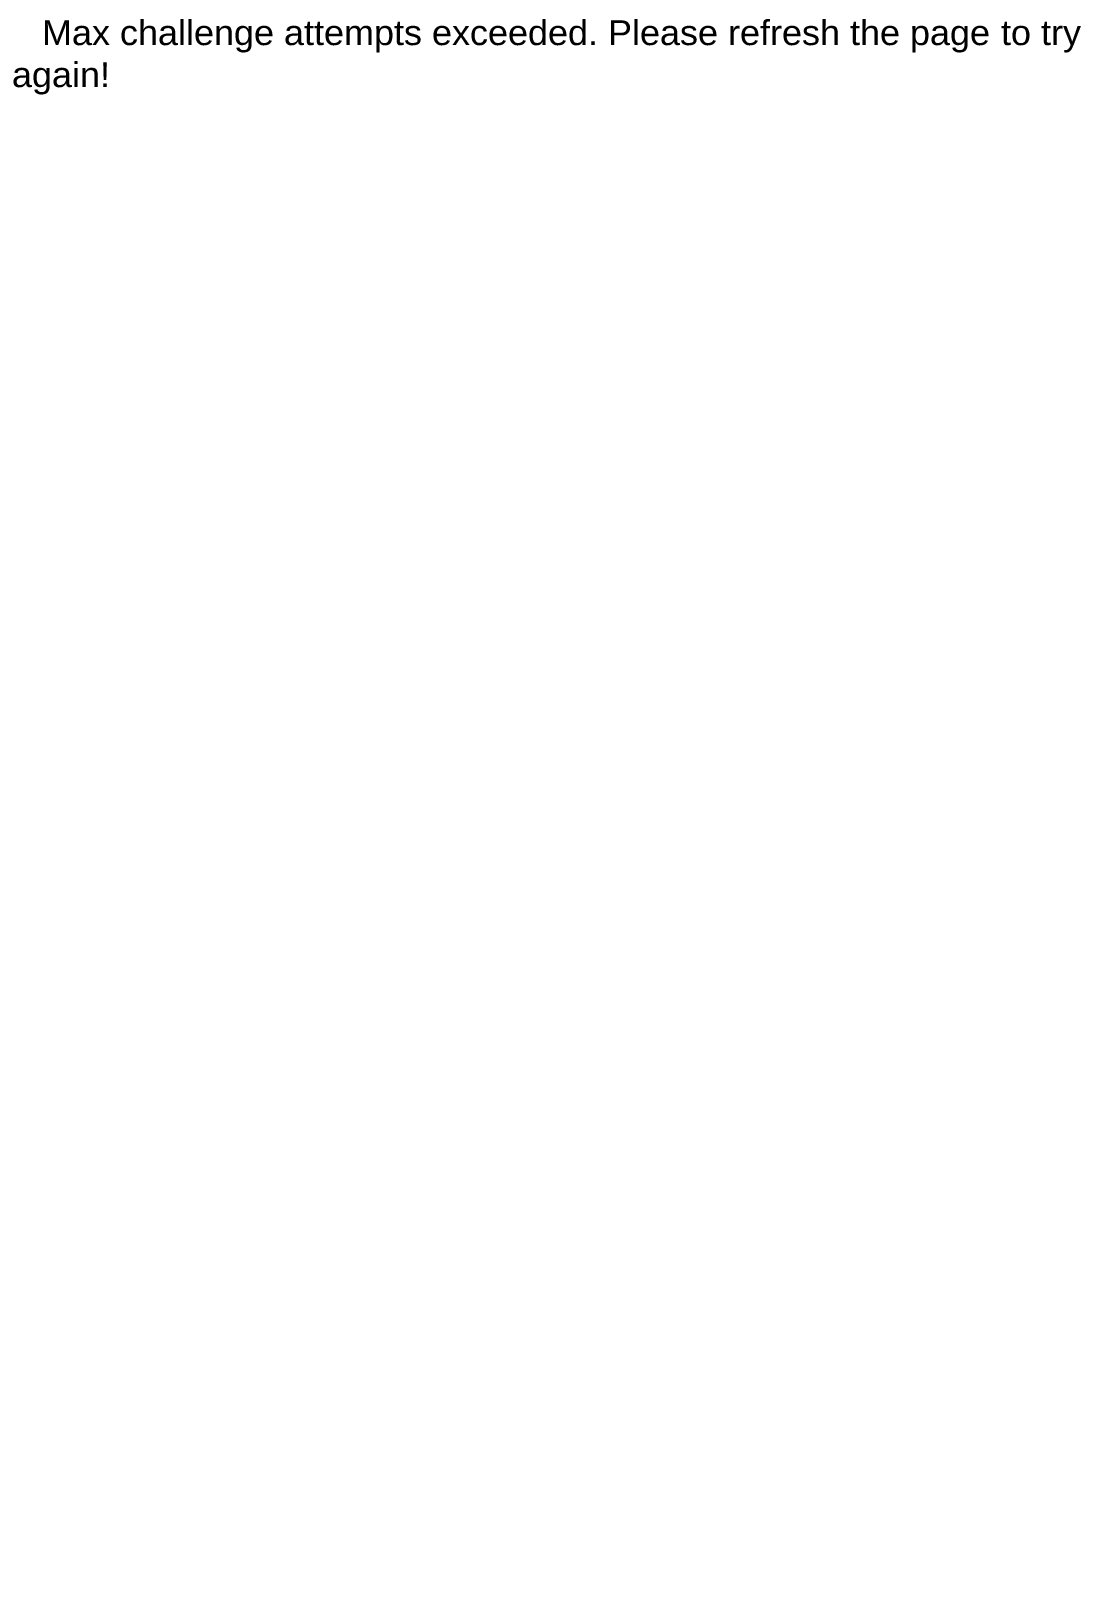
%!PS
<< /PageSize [1095 1616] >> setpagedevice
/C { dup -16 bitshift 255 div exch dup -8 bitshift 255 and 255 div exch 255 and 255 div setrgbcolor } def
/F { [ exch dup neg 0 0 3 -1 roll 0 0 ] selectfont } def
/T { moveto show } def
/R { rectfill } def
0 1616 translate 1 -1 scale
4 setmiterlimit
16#FFFFFF C
0 0 1095 1616 R
/LiberationSans-Regular 36 F
16#000000 C
(Max challenge attempts exceeded. Please refresh the page to try) 42 45 T
(again!) 12 87 T
showpage
